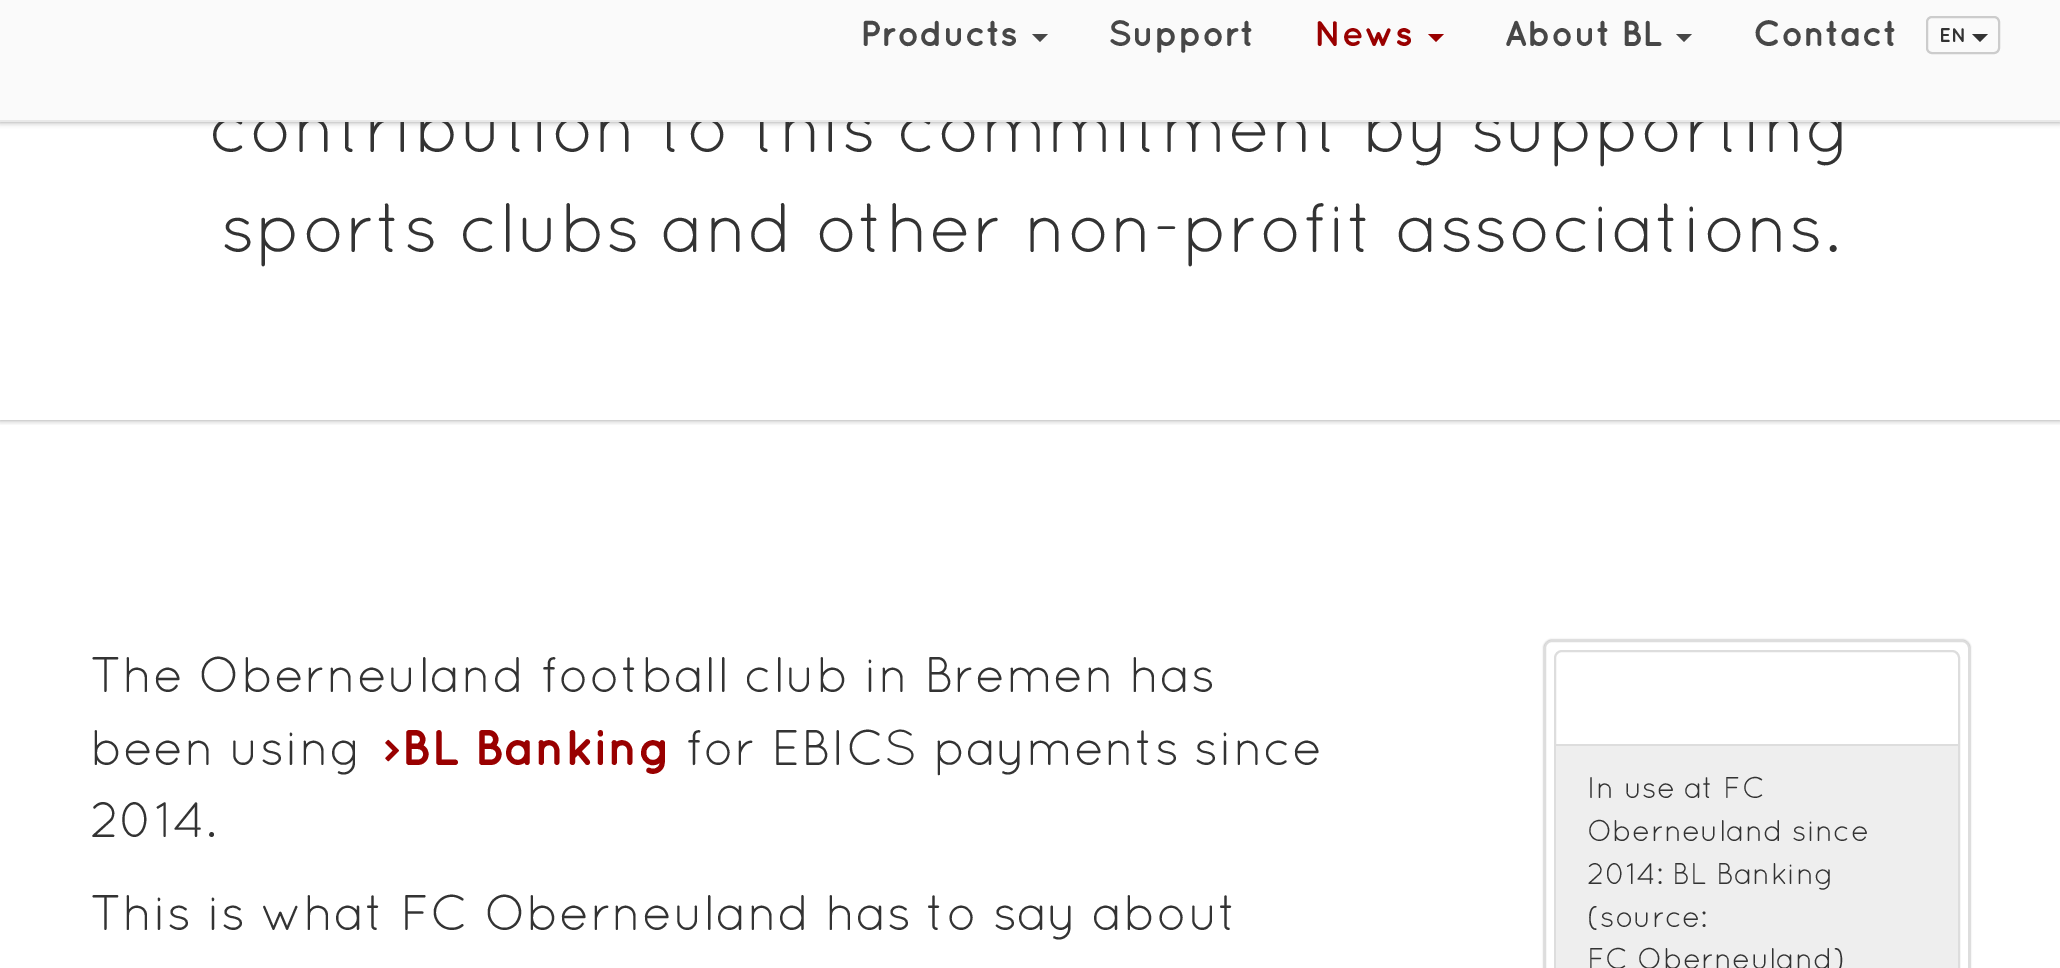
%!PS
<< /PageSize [2060 968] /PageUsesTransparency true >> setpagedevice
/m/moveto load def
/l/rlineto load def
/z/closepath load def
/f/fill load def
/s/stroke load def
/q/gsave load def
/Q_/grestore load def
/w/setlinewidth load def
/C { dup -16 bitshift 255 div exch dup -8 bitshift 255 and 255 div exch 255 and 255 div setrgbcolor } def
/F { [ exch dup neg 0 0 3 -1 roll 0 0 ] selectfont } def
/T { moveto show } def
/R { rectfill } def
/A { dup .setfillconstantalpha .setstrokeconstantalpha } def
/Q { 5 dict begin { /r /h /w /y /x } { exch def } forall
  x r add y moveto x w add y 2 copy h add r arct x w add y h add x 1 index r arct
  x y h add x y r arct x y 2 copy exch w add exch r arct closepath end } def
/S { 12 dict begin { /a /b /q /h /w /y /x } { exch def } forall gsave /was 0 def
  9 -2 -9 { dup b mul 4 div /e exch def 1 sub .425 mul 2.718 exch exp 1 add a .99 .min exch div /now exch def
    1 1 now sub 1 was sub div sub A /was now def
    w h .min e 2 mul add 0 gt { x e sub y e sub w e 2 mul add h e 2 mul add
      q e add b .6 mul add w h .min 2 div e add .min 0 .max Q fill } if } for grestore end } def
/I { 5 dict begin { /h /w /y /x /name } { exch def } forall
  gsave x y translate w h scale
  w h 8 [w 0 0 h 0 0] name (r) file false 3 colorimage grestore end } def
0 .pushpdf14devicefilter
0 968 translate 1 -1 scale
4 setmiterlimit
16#FFFFFF C
0 0 2060 968 R
16#000000 C
0 0 2060 122 0 3 .4 S
q
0 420 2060 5 rectclip
0 -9 2060 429 0 3 .4 S
Q_
/Quicksand-Regular 70 F
16#333333 C
(contribution to this commitment by supporting) 209 152 T
16#FAFAFA C
0 0 2060 120 R
16#E9E9E9 C
0 120 2060 2 R
/Quicksand-Bold 36 F
16#474747 C
(Products) 860 46 T
1032 34 m 16 0 l -8 8 l z f
(Support) 1108 46 T
16#990000 C
(News) 1314 46 T
1428 34 m 16 0 l -8 8 l z f
16#474747 C
(About BL) 1504 46 T
1676 34 m 16 0 l -8 8 l z f
(Contact) 1753 46 T
16#CCCCCC C
2 w
1927 17 72 36 5 Q s
/Quicksand-Bold 20 F
16#333333 C
(EN) 1939 42 T
1972 34 m 16 0 l -8 8 l z f
/Quicksand-Regular 70 F
(sports clubs and other non-profit associations.) 221 252 T
/Quicksand-Regular 50 F
(The Oberneuland football club in Bremen has) 90 692 T
(been using) 90 765 T
(1.rgb) 385 739 14 23 I
/Quicksand-Bold 50 F
16#990000 C
(BL Banking) 401 765 T
/Quicksand-Regular 50 F
16#333333 C
(for EBICS payments since) 685 765 T
(2014.) 90 837 T
(This is what FC Oberneuland has to say about) 90 930 T
16#000000 C
1544 640 426 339 8 1 .4 S
16#FFFFFF C
1545 641 424 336 7 Q q f Q_
16#DDDDDD C
s
1555 651 404 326 7 Q s
16#EEEEEE C
1556 746 402 222 R
16#DDDDDD C
1556 744 402 2 R
/Quicksand-Regular 30 F
16#333333 C
(In use at FC) 1587 798 T
(Oberneuland since) 1587 841 T
(2014: BL Banking) 1587 884 T
(\(source:) 1587 927 T
(FC Oberneuland\)) 1587 969 T
.poppdf14devicefilter showpage
